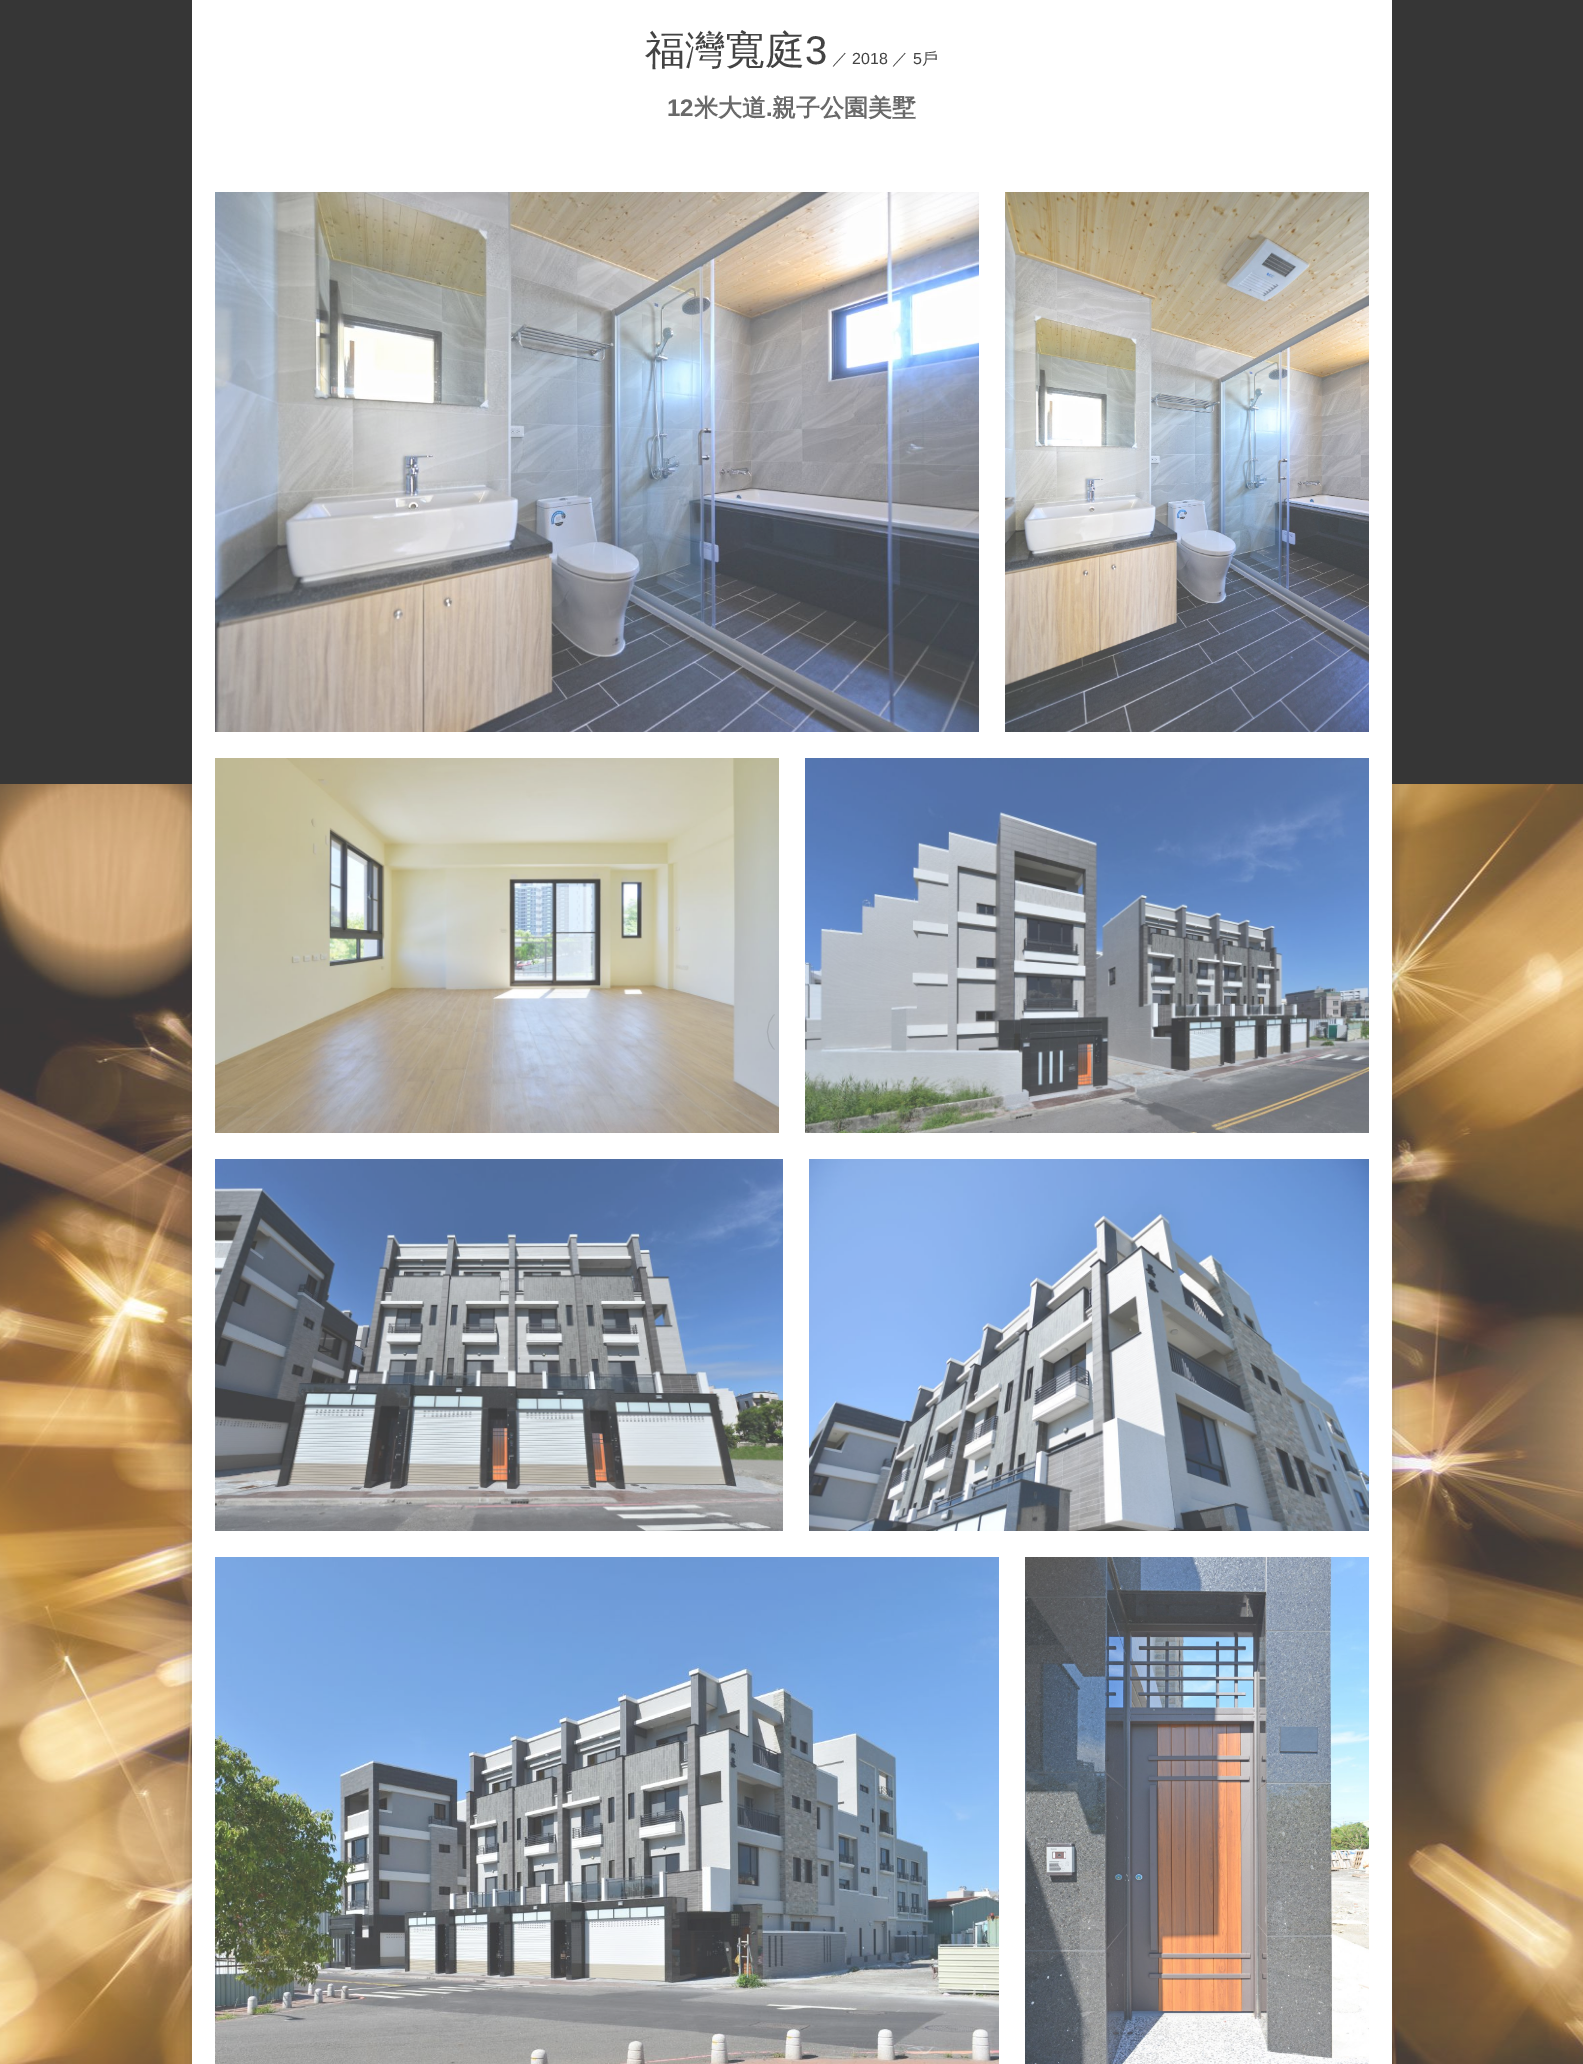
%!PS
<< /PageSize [1583 2064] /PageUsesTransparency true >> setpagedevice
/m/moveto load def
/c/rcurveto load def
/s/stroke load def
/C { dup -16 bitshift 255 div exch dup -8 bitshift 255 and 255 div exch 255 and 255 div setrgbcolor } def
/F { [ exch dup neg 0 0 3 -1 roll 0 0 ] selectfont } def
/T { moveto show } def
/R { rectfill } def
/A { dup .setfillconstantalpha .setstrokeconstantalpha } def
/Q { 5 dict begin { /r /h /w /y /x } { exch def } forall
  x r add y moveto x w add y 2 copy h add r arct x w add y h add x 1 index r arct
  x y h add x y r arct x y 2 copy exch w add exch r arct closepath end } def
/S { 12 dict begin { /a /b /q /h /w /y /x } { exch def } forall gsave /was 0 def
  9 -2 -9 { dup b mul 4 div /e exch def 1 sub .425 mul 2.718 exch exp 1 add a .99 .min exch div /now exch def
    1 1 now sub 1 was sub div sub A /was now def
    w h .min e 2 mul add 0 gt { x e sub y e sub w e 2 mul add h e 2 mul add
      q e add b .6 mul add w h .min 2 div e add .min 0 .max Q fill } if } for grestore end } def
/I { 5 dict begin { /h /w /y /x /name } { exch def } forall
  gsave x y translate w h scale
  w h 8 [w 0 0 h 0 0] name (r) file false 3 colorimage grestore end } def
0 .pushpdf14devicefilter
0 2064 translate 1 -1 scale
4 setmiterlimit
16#363636 C
0 0 1583 2064 R
(1.rgb) 0 784 1583 1280 I
192 0 1200 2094 0 10 .32 S
16#FFFFFF C
192 0 1200 2064 R
/WenQuanYiZenHei-Medium 40 F
16#434343 C
(福灣寬庭) 645 64 T
/LiberationSans-Regular 40 F
(3) 805 64 T
/WenQuanYiZenHei-Medium 16 F
(／) 832 64 T
/LiberationSans-Regular 16 F
(2018) 852 64 T
/WenQuanYiZenHei-Medium 16 F
(／) 892 64 T
/LiberationSans-Regular 16 F
(5) 913 64 T
/WenQuanYiZenHei-Medium 16 F
(戶) 922 64 T
/LiberationSans-Bold 24 F
16#696969 C
(12) 667 116 T
/WenQuanYiZenHei-Bold 24 F
(米大道) 694 116 T
/LiberationSans-Bold 24 F
(.) 766 116 T
/WenQuanYiZenHei-Bold 24 F
(親子公園美墅) 772 116 T
(2.rgb) 215 192 764 540 I
(3.rgb) 1005 192 364 540 I
(4.rgb) 215 758 564 375 I
(5.rgb) 805 758 564 375 I
(6.rgb) 215 1159 568 372 I
(7.rgb) 809 1159 560 372 I
(8.rgb) 215 1557 784 507 I
(9.rgb) 1025 1557 344 507 I
0.1 A
16#000000 C
774.5 1049.5 m -9.5 -9.5 -9.5 -25.5 0 -35 c s
.poppdf14devicefilter showpage
